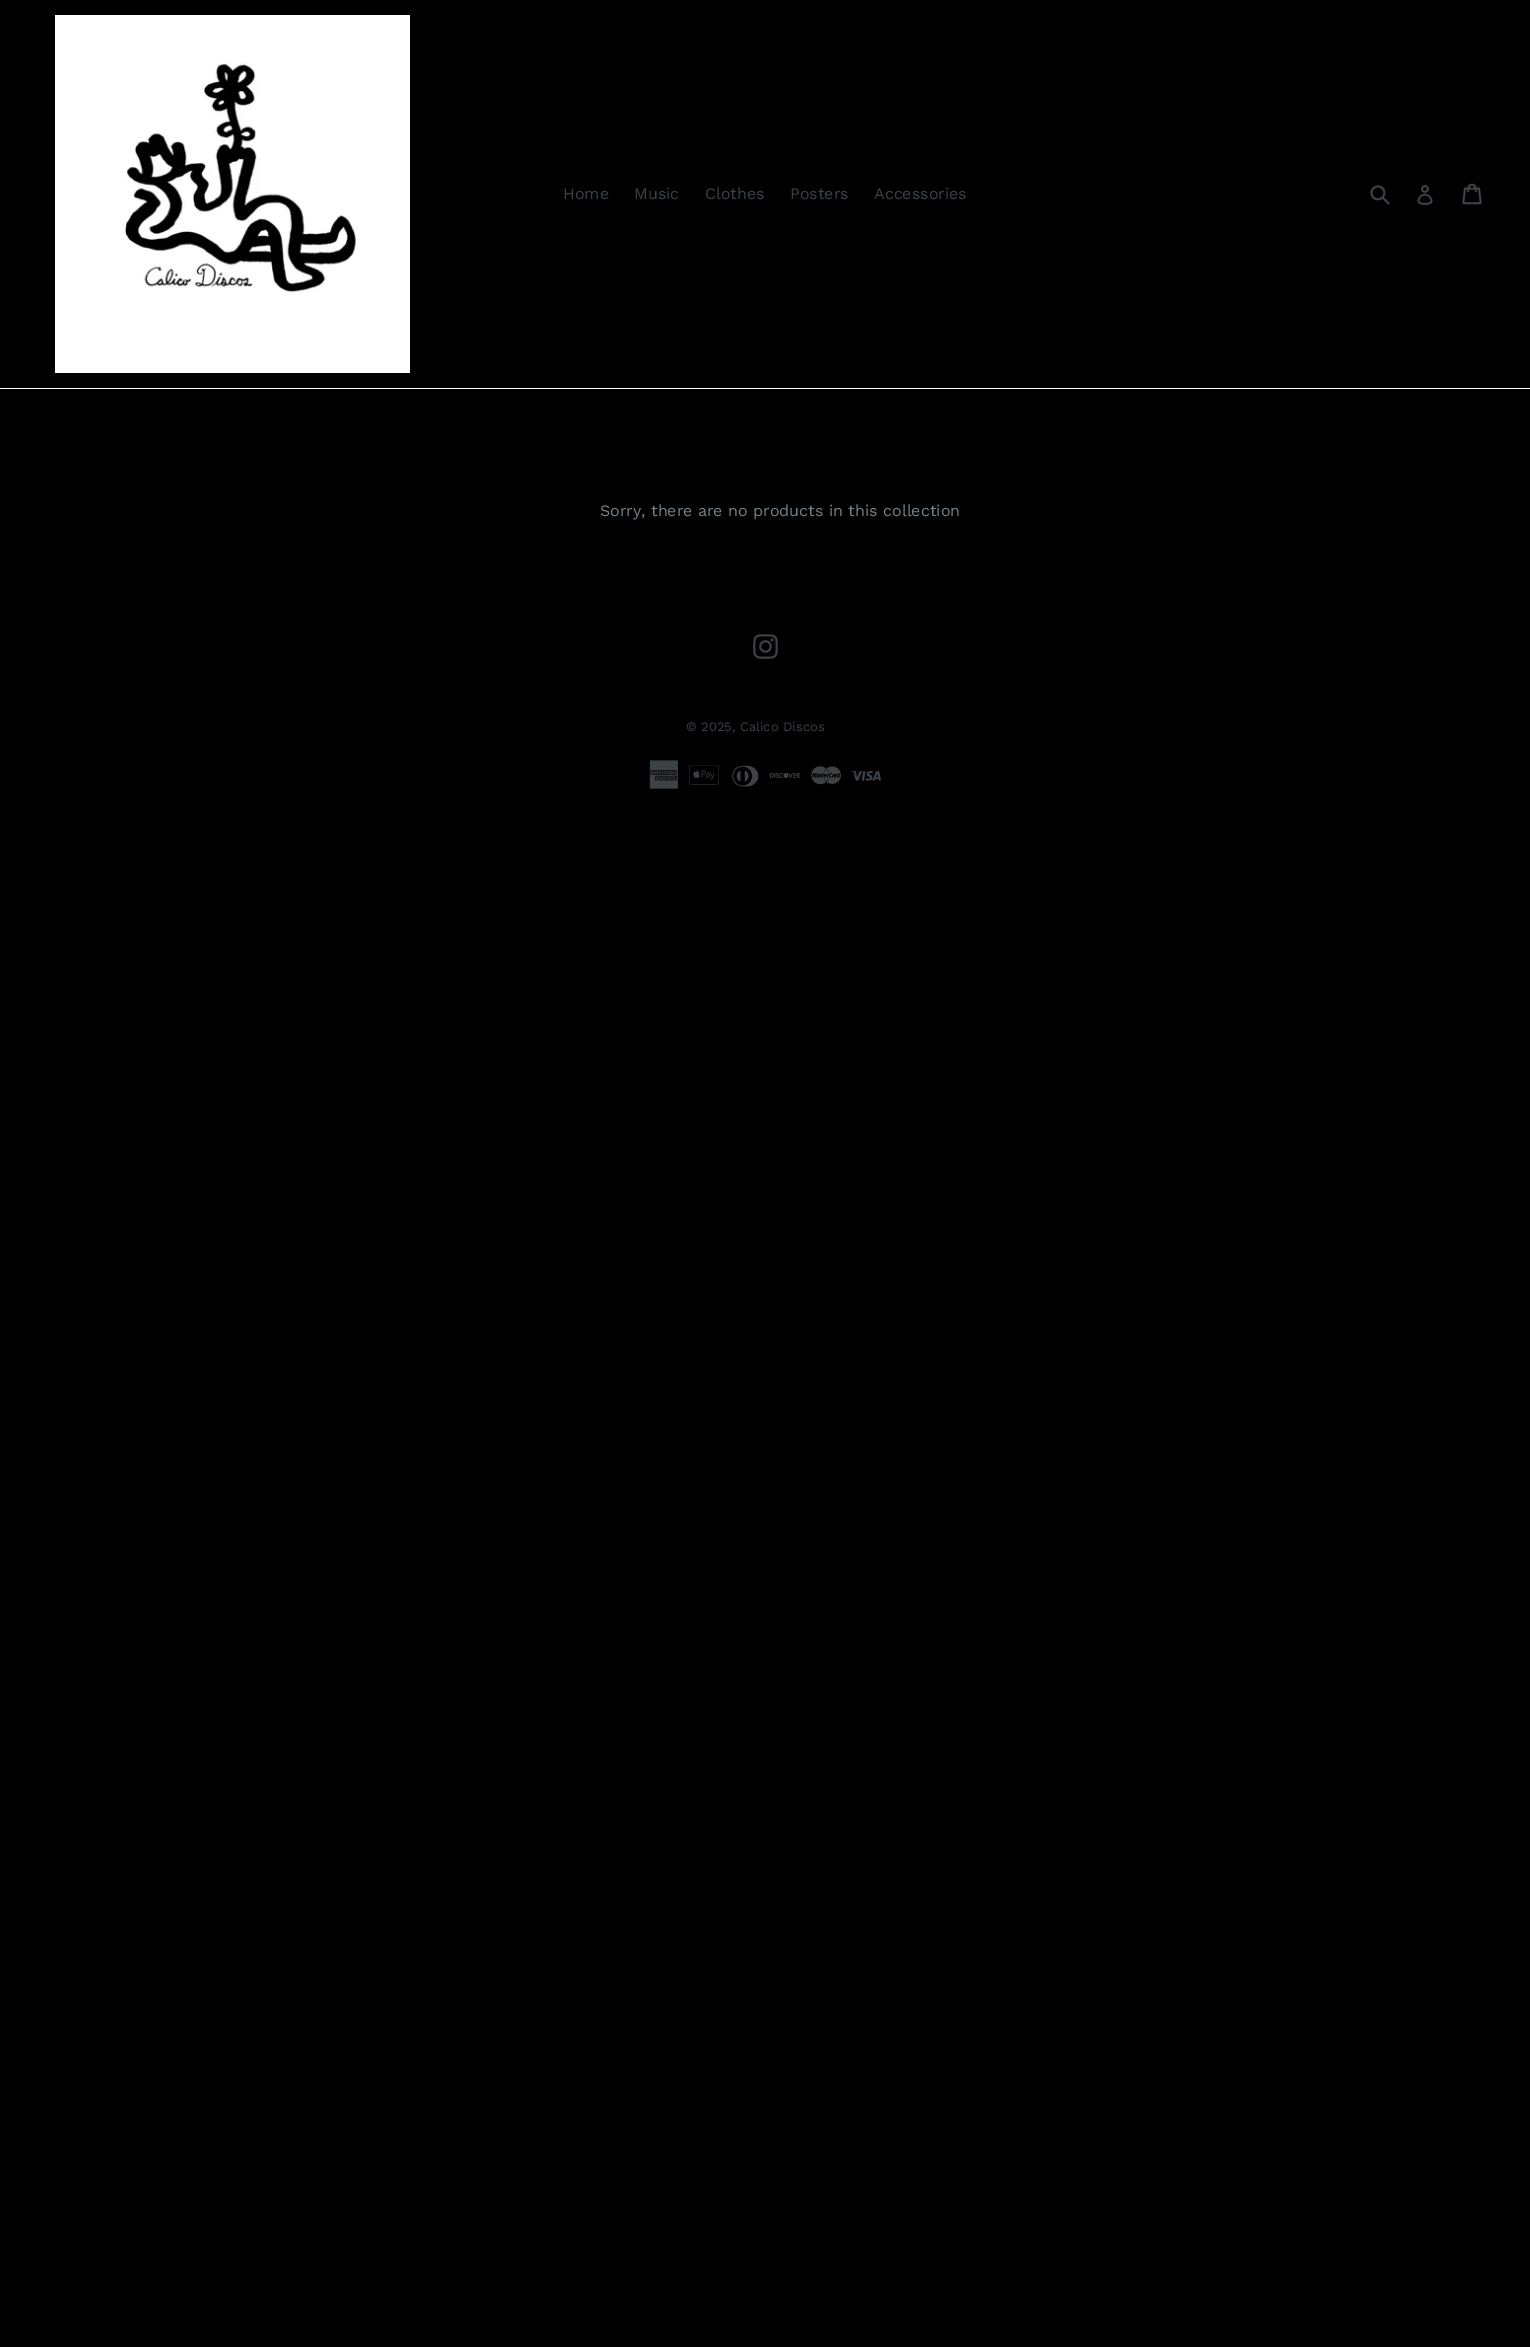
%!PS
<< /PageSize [1530 2347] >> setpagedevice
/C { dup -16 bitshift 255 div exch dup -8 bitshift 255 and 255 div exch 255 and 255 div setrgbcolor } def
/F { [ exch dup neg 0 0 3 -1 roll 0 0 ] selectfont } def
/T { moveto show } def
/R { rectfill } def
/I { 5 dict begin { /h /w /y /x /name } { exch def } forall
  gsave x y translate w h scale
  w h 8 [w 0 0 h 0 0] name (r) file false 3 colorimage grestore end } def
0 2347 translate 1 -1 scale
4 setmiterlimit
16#000000 C
0 0 1530 2347 R
16#FFFFFF C
0 388 1530 1 R
(1.rgb) 55 15 355 358 I
/WorkSans-Regular 16 F
16#3D4246 C
(Home) 563 199 T
(Music) 634 199 T
(Clothes) 705 199 T
(Posters) 790 199 T
(Accessories) 874 199 T
(2.rgb) 1370 185 20 20 I
(3.rgb) 1417 185 16 20 I
(4.rgb) 1462 183 20 22 I
16#788188 C
(Sorry, there are no products in this collection) 600 516 T
(5.rgb) 753 634 25 25 I
/WorkSans-Regular 13 F
16#3D4246 C
(© 2025, Calico Discos) 686 731 T
(6.rgb) 649 760 30 29 I
(7.rgb) 689 765 30 20 I
(8.rgb) 732 765 27 22 I
(9.rgb) 770 773 30 5 I
(10.rgb) 811 766 30 19 I
(11.rgb) 851 771 30 10 I
showpage
